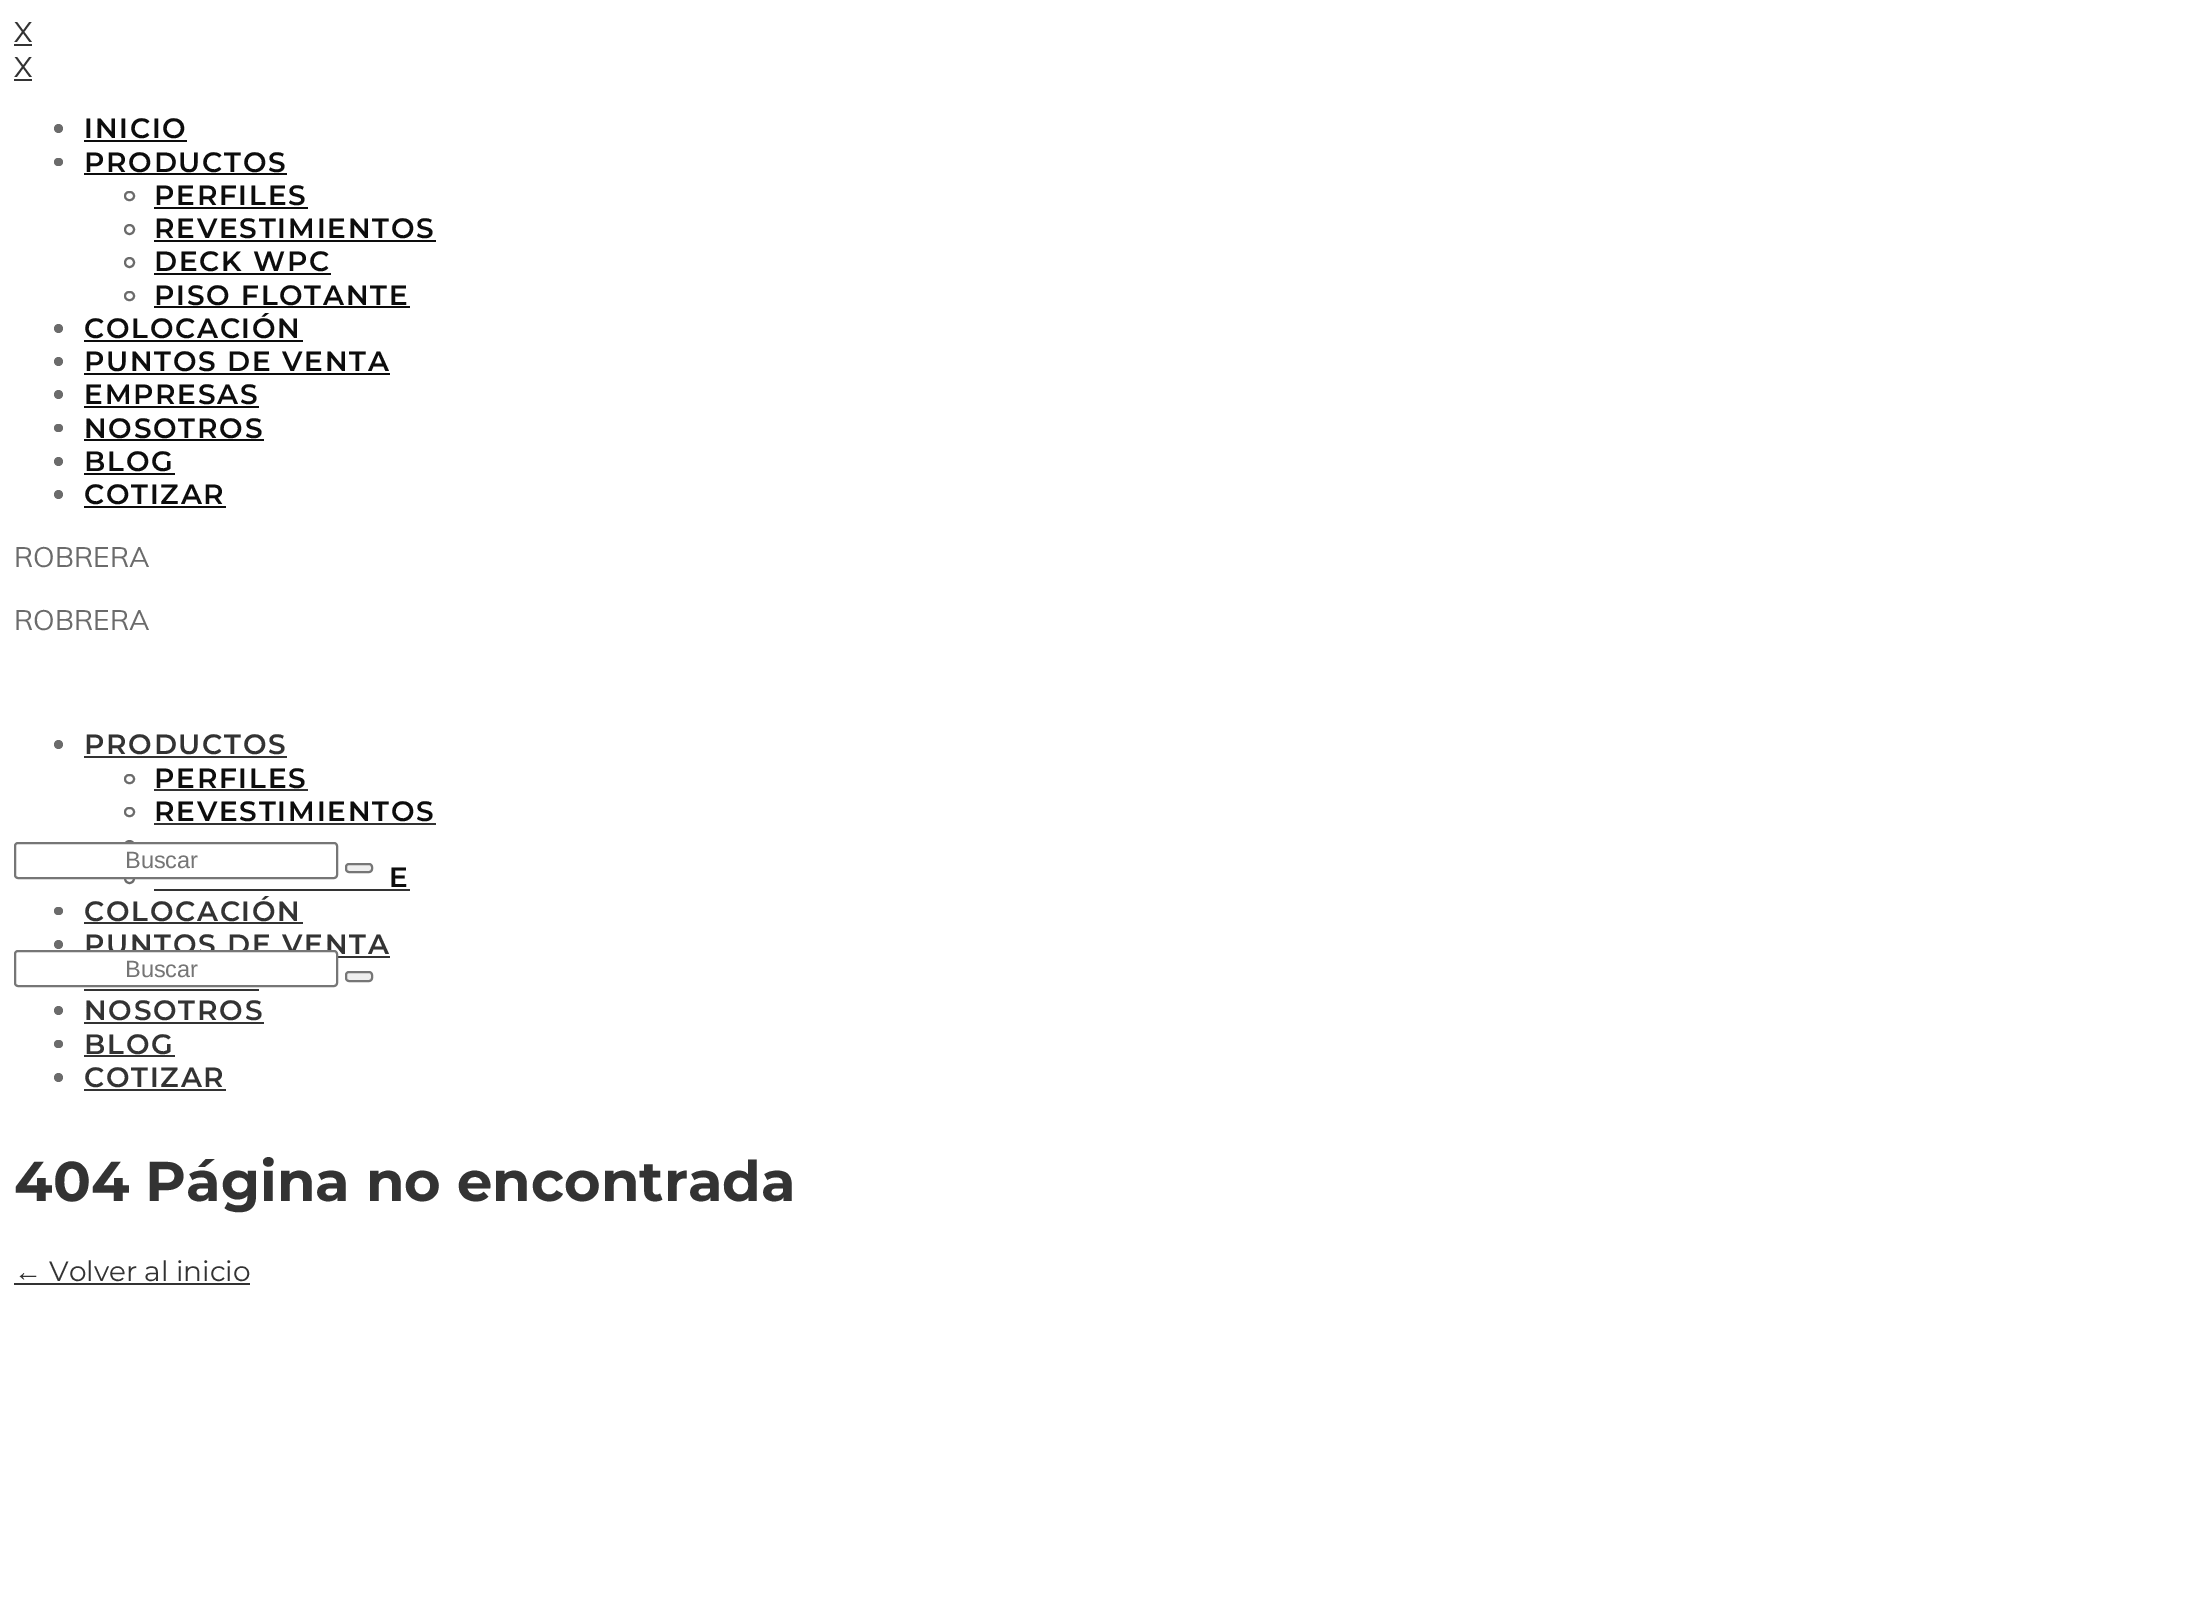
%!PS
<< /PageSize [2200 1610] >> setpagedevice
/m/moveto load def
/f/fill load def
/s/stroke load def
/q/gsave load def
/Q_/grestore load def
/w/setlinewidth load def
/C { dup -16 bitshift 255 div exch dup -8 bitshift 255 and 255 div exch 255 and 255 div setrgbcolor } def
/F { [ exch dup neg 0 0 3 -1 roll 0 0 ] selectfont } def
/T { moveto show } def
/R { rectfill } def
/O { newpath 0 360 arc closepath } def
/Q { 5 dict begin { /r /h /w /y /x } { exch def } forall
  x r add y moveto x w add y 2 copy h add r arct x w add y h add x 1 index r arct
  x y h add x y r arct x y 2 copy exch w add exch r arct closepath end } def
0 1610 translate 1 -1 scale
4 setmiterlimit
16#FFFFFF C
0 0 2200 1610 R
/Muli-Regular 28 F
16#333333 C
(X) 14 42 T
14 44 18 2 R
(X) 14 77 T
14 79 18 2 R
16#6B6B6B C
58.5 128.5 4.5 O f
/Montserrat-SemiBold 28 F
16#0D0D0D C
84 138 m 1.75 0 (INICIO) ashow
84 140 103 2 R
16#6B6B6B C
54 158 9 8 4 Q f
16#0D0D0D C
84 172 m 1.75 0 (PRODUCTOS) ashow
84 173 203 2 R
16#6B6B6B C
2 w
125 192 9 8 4 Q s
16#0D0D0D C
154 205 m 1.75 0 (PERFILES) ashow
154 207 154 2 R
16#6B6B6B C
129.5 229.5 4.5 O s
16#0D0D0D C
154 238 m 1.75 0 (REVESTIMIENTOS) ashow
154 240 282 2 R
16#6B6B6B C
129.5 262.5 4.5 O s
16#0D0D0D C
154 271 m 1.75 0 (DECK WPC) ashow
154 273 177 2 R
16#6B6B6B C
125 292 9 8 4 Q s
16#0D0D0D C
154 305 m 1.75 0 (PISO FLOTANTE) ashow
154 306 256 2 R
16#6B6B6B C
58.5 328.5 4.5 O f
16#0D0D0D C
84 338 m 1.75 0 (COLOCACIÓN) ashow
84 340 219 2 R
16#6B6B6B C
58.5 361.5 4.5 O f
16#0D0D0D C
84 371 m 1.75 0 (PUNTOS DE VENTA) ashow
84 373 306 2 R
16#6B6B6B C
58.5 394.5 4.5 O f
16#0D0D0D C
84 404 m 1.75 0 (EMPRESAS) ashow
84 406 175 2 R
16#6B6B6B C
54 424 9 8 4 Q f
16#0D0D0D C
84 438 m 1.75 0 (NOSOTROS) ashow
84 439 180 2 R
16#6B6B6B C
58.5 461.5 4.5 O f
16#0D0D0D C
84 471 m 1.75 0 (BLOG) ashow
84 473 91 2 R
16#6B6B6B C
58.5 494.5 4.5 O f
16#0D0D0D C
84 504 m 1.75 0 (COTIZAR) ashow
84 506 142 2 R
/Muli-Regular 28 F
16#6B6B6B C
(ROBRERA) 14 567 T
(ROBRERA) 14 630 T
58.5 744.5 4.5 O f
/Montserrat-SemiBold 28 F
16#333333 C
84 754 m 1.75 0 (PRODUCTOS) ashow
84 756 203 2 R
16#6B6B6B C
125 775 9 8 4 Q s
16#0D0D0D C
154 788 m 1.75 0 (PERFILES) ashow
16#333333 C
154 789 154 2 R
16#6B6B6B C
125 808 9 8 4 Q s
16#0D0D0D C
154 821 m 1.75 0 (REVESTIMIENTOS) ashow
16#333333 C
154 823 282 2 R
16#6B6B6B C
129.5 845.5 4.5 O s
129.5 878.5 4.5 O s
16#0D0D0D C
389 887 m 1.75 0 (E) ashow
16#333333 C
154 889 256 2 R
16#6B6B6B C
54 907 9 8 4 Q f
16#333333 C
84 921 m 1.75 0 (COLOCACIÓN) ashow
84 922 219 2 R
16#6B6B6B C
58.5 944.5 4.5 O f
16#333333 C
84 954 m 1.75 0 (PUNTOS DE VENTA) ashow
338 956 52 2 R
84 989 175 2 R
16#6B6B6B C
58.5 1010.5 4.5 O f
16#333333 C
84 1020 m 1.75 0 (NOSOTROS) ashow
84 1022 180 2 R
16#6B6B6B C
54 1040 9 8 4 Q f
16#333333 C
84 1054 m 1.75 0 (BLOG) ashow
84 1055 91 2 R
16#6B6B6B C
58.5 1077.5 4.5 O f
16#333333 C
84 1087 m 1.75 0 (COTIZAR) ashow
84 1089 142 2 R
16#FFFFFF C
15 843 322 35 3 Q q f Q_
16#767676 C
s
/LiberationSans-Regular 23.5 F
16#757575 C
(Buscar) 125 868 T
16#EFEFEF C
346 864 26 8 3 Q q f Q_
16#767676 C
s
16#FFFFFF C
15 951 322 35 3 Q q f Q_
16#767676 C
s
16#757575 C
(Buscar) 125 977 T
16#EFEFEF C
346 972 26 9 3 Q q f Q_
16#767676 C
s
/Montserrat-Bold 56 F
16#333333 C
(404 Página no encontrada) 14 1201 T
/LiberationSerif-Regular 28 F
(←) 14 1281 T
14 1283 236 2 R
/Montserrat-Regular 28 F
(Volver al inicio) 49 1281 T
showpage
